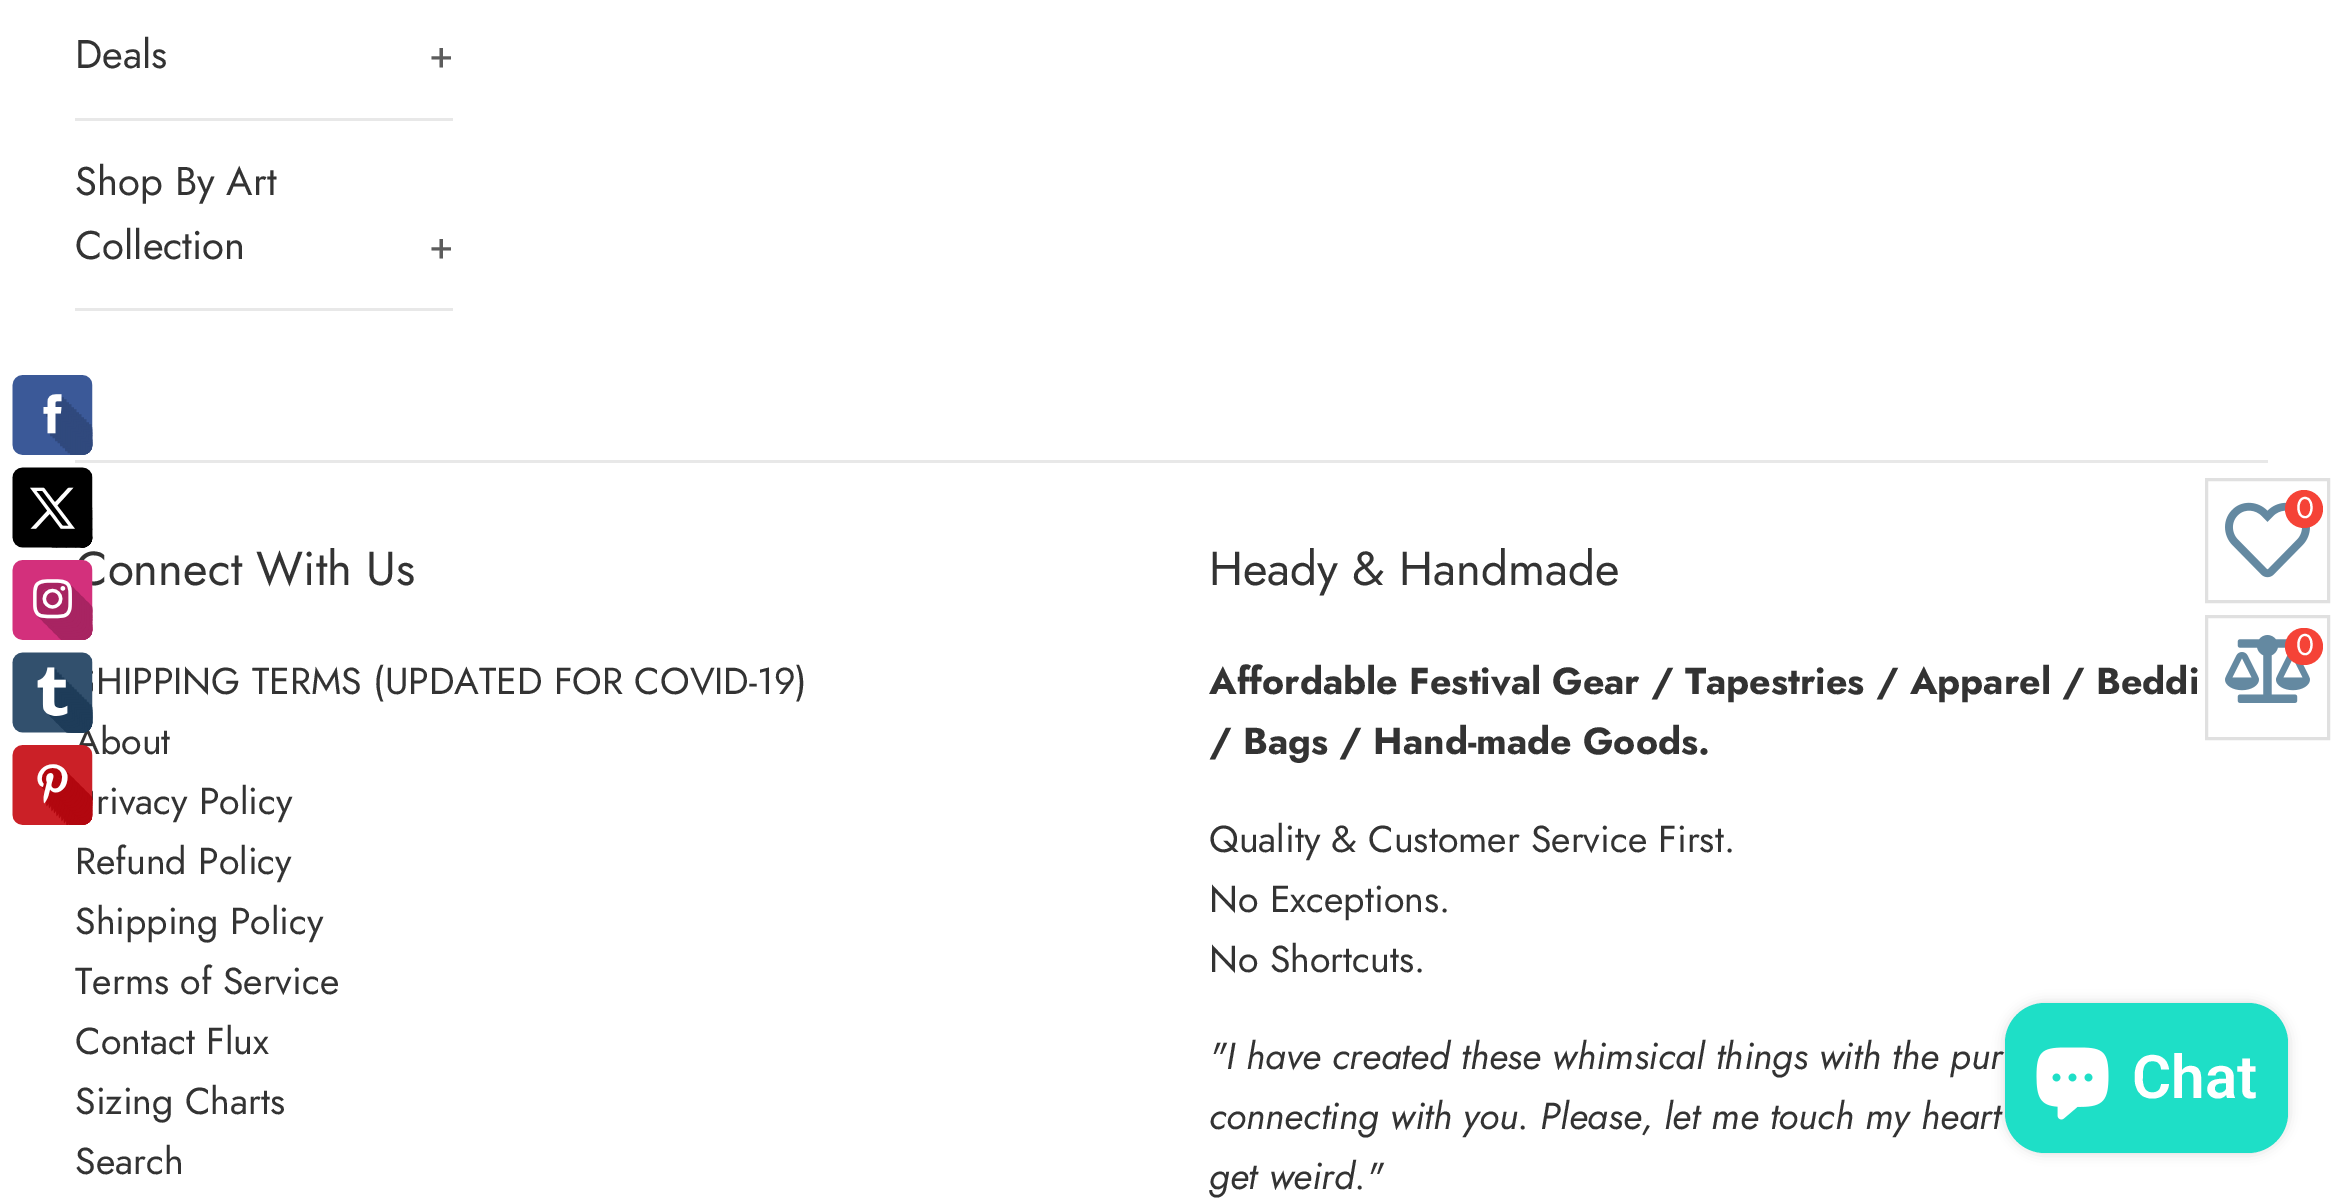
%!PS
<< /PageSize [2341 1203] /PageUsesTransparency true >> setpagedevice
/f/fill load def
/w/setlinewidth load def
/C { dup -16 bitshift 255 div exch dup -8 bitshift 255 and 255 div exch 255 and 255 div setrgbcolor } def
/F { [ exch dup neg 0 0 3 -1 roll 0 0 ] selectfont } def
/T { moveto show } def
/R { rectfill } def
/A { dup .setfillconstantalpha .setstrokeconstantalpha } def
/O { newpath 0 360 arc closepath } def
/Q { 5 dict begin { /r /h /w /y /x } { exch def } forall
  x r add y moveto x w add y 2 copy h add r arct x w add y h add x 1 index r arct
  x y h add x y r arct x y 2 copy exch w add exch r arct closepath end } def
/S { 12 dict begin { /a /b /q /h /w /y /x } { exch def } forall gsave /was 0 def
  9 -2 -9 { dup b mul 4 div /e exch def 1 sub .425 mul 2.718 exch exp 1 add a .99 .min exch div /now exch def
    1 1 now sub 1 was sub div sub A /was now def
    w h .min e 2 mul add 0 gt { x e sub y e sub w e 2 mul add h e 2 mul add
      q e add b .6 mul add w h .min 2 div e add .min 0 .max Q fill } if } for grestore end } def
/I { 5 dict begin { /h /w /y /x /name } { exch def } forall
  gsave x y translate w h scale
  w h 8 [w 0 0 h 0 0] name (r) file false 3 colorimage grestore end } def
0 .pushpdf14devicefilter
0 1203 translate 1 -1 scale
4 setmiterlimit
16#FFFFFF C
0 0 2341 1203 R
16#E8E8E8 C
75 460 2193 3 R
/Jost-Regular 47.5 F
16#333333 C
(Connect With Us) 75 585 T
/Jost-Regular 37.5 F
(About) 75 754 T
(1.rgb) 12 375 81 450 I
16#E8E8E8 C
75 118 378 3 R
/Jost-Regular 40 F
16#333333 C
(Deals) 75 68 T
16#5C5C5C C
(+) 429 68 T
16#E8E8E8 C
75 308 378 3 R
16#333333 C
(Shop By Art) 75 195 T
(Collection) 75 259 T
16#5C5C5C C
(+) 429 259 T
/Jost-Regular 37.5 F
16#333333 C
(HIPPING TERMS \(UPDATED FOR COVID-19\)) 96 694 T
(rivacy Policy) 96 814 T
(Refund Policy) 75 874 T
(Shipping Policy) 75 934 T
(Terms of Service) 75 994 T
(Contact Flux) 75 1054 T
(Sizing Charts) 75 1114 T
(Search) 75 1174 T
/Jost-Regular 47.5 F
(Heady & Handmade) 1209 585 T
/Jost-Bold 37.5 F
(Affordable Festival Gear / Tapestries / Apparel / Beddi) 1209 694 T
(/ Bags / Hand-made Goods.) 1209 754 T
/Jost-Regular 37.5 F
(Quality & Customer Service First.) 1209 852 T
(No Exceptions.) 1209 912 T
(No Shortcuts.) 1209 972 T
/Jost-Italic 37.5 F
("I have created these whimsical things with the pur) 1209 1069 T
(connecting with you. Please, let me touch my heart) 1209 1129 T
(get weird.") 1209 1189 T
16#E0E0E0 C
3 w
2206.5 479.5 122 122 rectstroke
(2.rgb) 2225 502 85 76 I
16#F54337 C
2304 509 19 O f
/Jost-Regular 30 F
16#FFFFFF C
(0) 2296 518 T
16#E0E0E0 C
2206.5 616.5 122 122 rectstroke
(3.rgb) 2225 635 85 68 I
16#F54337 C
2285 628 38 37 18.5 Q f
16#FFFFFF C
(0) 2296 655 T
16#000000 C
2005 1003 283 150 40 6 .15 S
16#1EDFC7 C
2005 1003 283 150 40 Q f
(4.rgb) 2036 1047 73 73 I
/Roboto-SemiBold 60 F
16#FFFFFF C
(Chat) 2132 1098 T
.poppdf14devicefilter showpage
